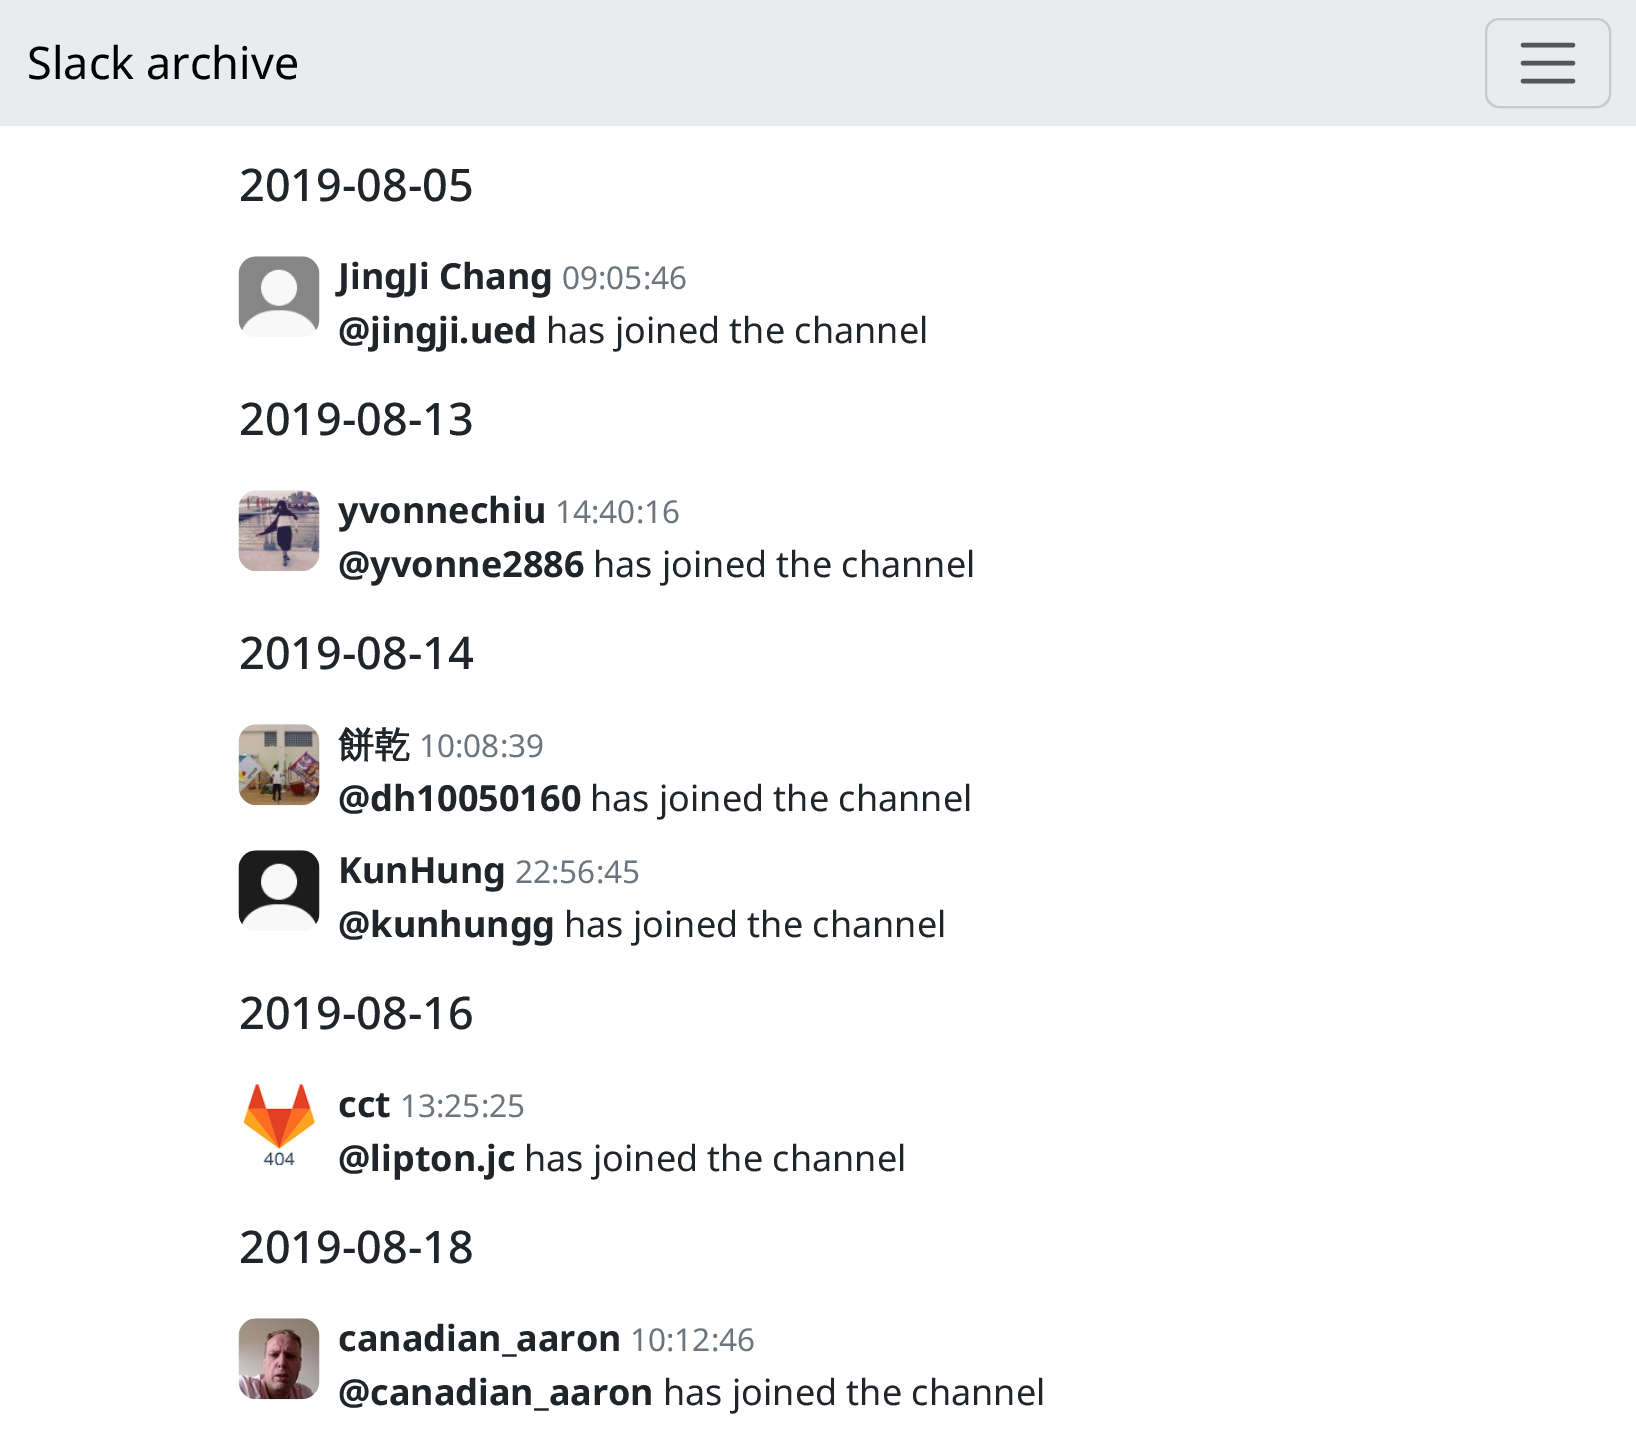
%!PS
<< /PageSize [1636 1456] >> setpagedevice
/m/moveto load def
/l/rlineto load def
/s/stroke load def
/w/setlinewidth load def
/C { dup -16 bitshift 255 div exch dup -8 bitshift 255 and 255 div exch 255 and 255 div setrgbcolor } def
/F { [ exch dup neg 0 0 3 -1 roll 0 0 ] selectfont } def
/T { moveto show } def
/R { rectfill } def
/Q { 5 dict begin { /r /h /w /y /x } { exch def } forall
  x r add y moveto x w add y 2 copy h add r arct x w add y h add x 1 index r arct
  x y h add x y r arct x y 2 copy exch w add exch r arct closepath end } def
/I { 5 dict begin { /h /w /y /x /name } { exch def } forall
  gsave x y translate w h scale
  w h 8 [w 0 0 h 0 0] name (r) file false 3 colorimage grestore end } def
0 1456 translate 1 -1 scale
4 setmiterlimit
16#FFFFFF C
0 0 1636 1456 R
16#E9ECEF C
0 0 1636 126 R
/NotoSans-Regular 45 F
16#000000 C
(Slack archive) 27 79 T
16#C6C9CB C
2 w
1486 19 124 88 13 Q s
16#53575B C
4.5 w
1 setlinecap
1523 45 m 50 0 l 1523 63 m 50 0 l 1523 81 m 50 0 l s
/NotoSans-Medium 45 F
16#212529 C
(2019-08-05) 239 201 T
(1.rgb) 238 256 82 81 I
/NotoSans-Bold 36 F
(JingJi Chang) 338 289 T
/NotoSans-Regular 31.5 F
16#6C757D C
(09:05:46) 562 289 T
/NotoSans-Bold 36 F
16#212529 C
(@jingji.ued) 338 343 T
/NotoSans-Regular 36 F
(has joined the channel) 546 343 T
/NotoSans-Medium 45 F
(2019-08-13) 239 435 T
(2.rgb) 238 490 82 82 I
/NotoSans-Bold 36 F
(yvonnechiu) 338 523 T
/NotoSans-Regular 31.5 F
16#6C757D C
(14:40:16) 555 523 T
/NotoSans-Bold 36 F
16#212529 C
(@yvonne2886) 338 577 T
/NotoSans-Regular 36 F
(has joined the channel) 593 577 T
/NotoSans-Medium 45 F
(2019-08-14) 239 669 T
(3.rgb) 238 724 82 82 I
/WenQuanYiZenHei-Bold 36 F
(餅乾) 338 757 T
/NotoSans-Regular 31.5 F
16#6C757D C
(10:08:39) 419 757 T
/NotoSans-Bold 36 F
16#212529 C
(@dh10050160) 338 811 T
/NotoSans-Regular 36 F
(has joined the channel) 590 811 T
(4.rgb) 238 850 82 81 I
/NotoSans-Bold 36 F
(KunHung) 338 883 T
/NotoSans-Regular 31.5 F
16#6C757D C
(22:56:45) 515 883 T
/NotoSans-Bold 36 F
16#212529 C
(@kunhungg) 338 937 T
/NotoSans-Regular 36 F
(has joined the channel) 564 937 T
/NotoSans-Medium 45 F
(2019-08-16) 239 1029 T
(5.rgb) 243 1084 73 82 I
/NotoSans-Bold 36 F
(cct) 338 1117 T
/NotoSans-Regular 31.5 F
16#6C757D C
(13:25:25) 400 1117 T
/NotoSans-Bold 36 F
16#212529 C
(@lipton.jc) 338 1171 T
/NotoSans-Regular 36 F
(has joined the channel) 524 1171 T
/NotoSans-Medium 45 F
(2019-08-18) 239 1263 T
(6.rgb) 238 1318 82 82 I
/NotoSans-Bold 36 F
(canadian_aaron) 338 1351 T
/NotoSans-Regular 31.5 F
16#6C757D C
(10:12:46) 630 1351 T
/NotoSans-Bold 36 F
16#212529 C
(@canadian_aaron) 338 1405 T
/NotoSans-Regular 36 F
(has joined the channel) 663 1405 T
showpage
